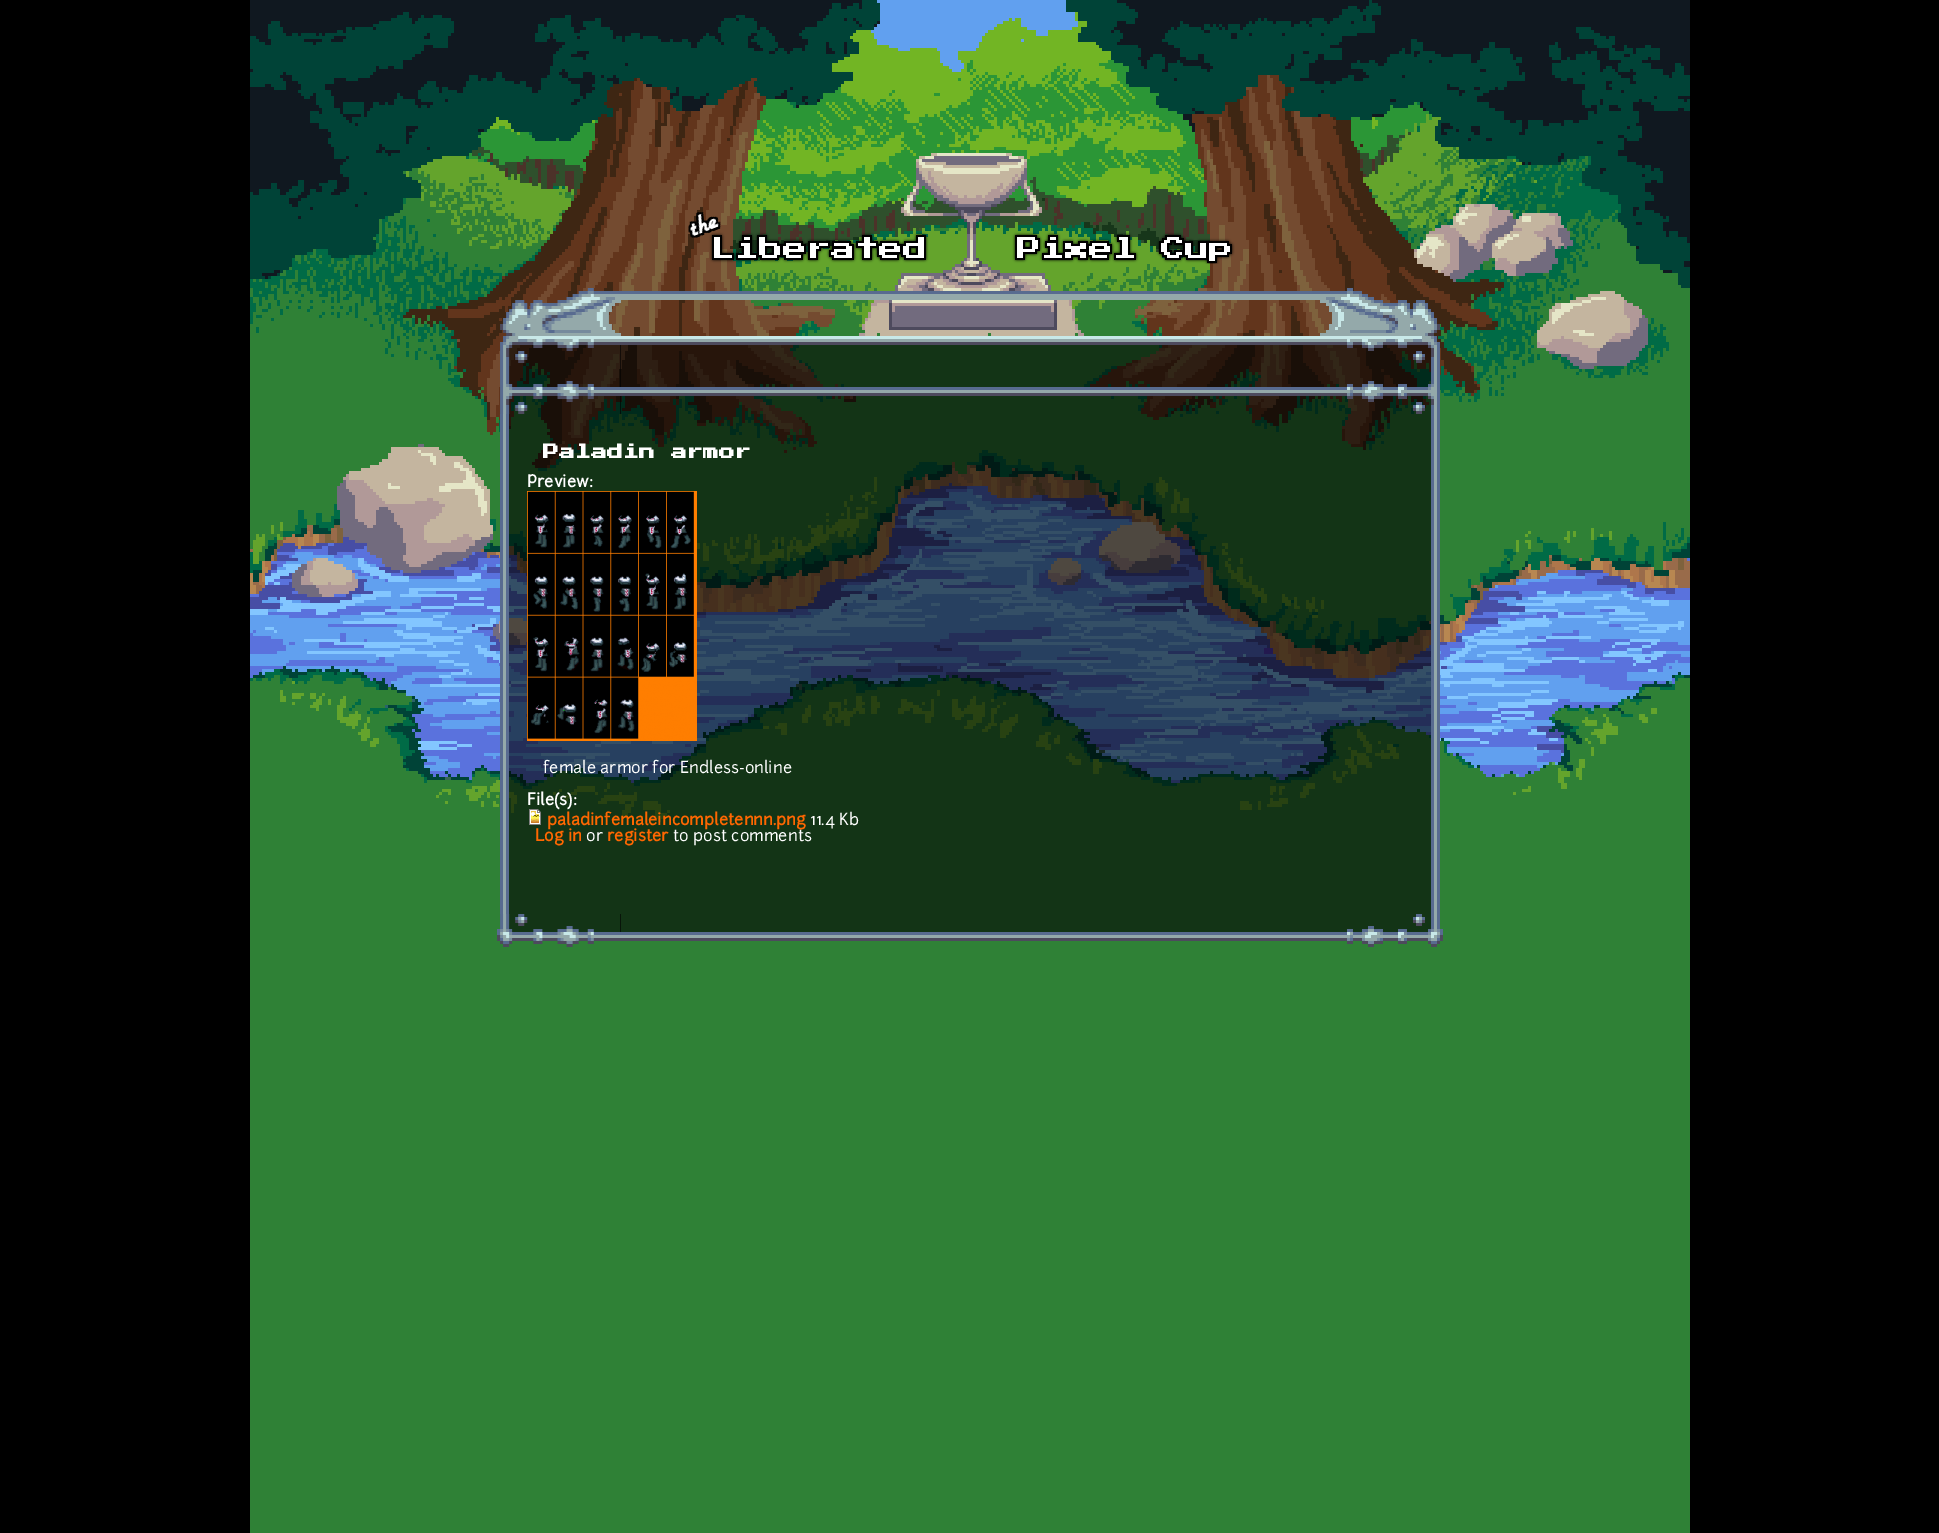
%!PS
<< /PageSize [1939 1533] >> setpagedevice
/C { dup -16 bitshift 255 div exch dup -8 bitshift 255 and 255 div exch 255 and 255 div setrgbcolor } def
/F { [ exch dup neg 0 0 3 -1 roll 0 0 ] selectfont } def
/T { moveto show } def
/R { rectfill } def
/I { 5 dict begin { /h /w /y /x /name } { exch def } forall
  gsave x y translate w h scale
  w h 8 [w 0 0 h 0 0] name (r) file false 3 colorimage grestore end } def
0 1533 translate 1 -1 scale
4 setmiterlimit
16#000000 C
0 0 1939 1533 R
(1.rgb) 250 0 1440 1533 I
(2.rgb) 688 212 547 52 I
(3.rgb) 500 288 940 126 I
(4.rgb) 500 414 940 500 I
/PressStart2P-Bold 16 F
16#FFFFFF C
(Paladin armor) 543 460 T
/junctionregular-Bold 16 F
(Preview:) 527 487 T
(5.rgb) 527 491 170 250 I
/junctionregular-Regular 16 F
(female armor for Endless-online) 543 773 T
/junctionregular-Bold 16 F
(File\(s\):) 527 805 T
(6.rgb) 529 809 12 16 I
16#FF6701 C
(paladinfemaleincompletennn.png) 547 825 T
/junctionregular-Regular 16 F
16#FFFFFF C
(11.4 Kb) 810 825 T
/junctionregular-Bold 16 F
16#FF6701 C
(Log in) 535 841 T
/junctionregular-Regular 16 F
16#FFFFFF C
(or) 586 841 T
/junctionregular-Bold 16 F
16#FF6701 C
(register) 607 841 T
/junctionregular-Regular 16 F
16#FFFFFF C
(to post comments) 673 841 T
(7.rgb) 497 914 946 33 I
showpage
